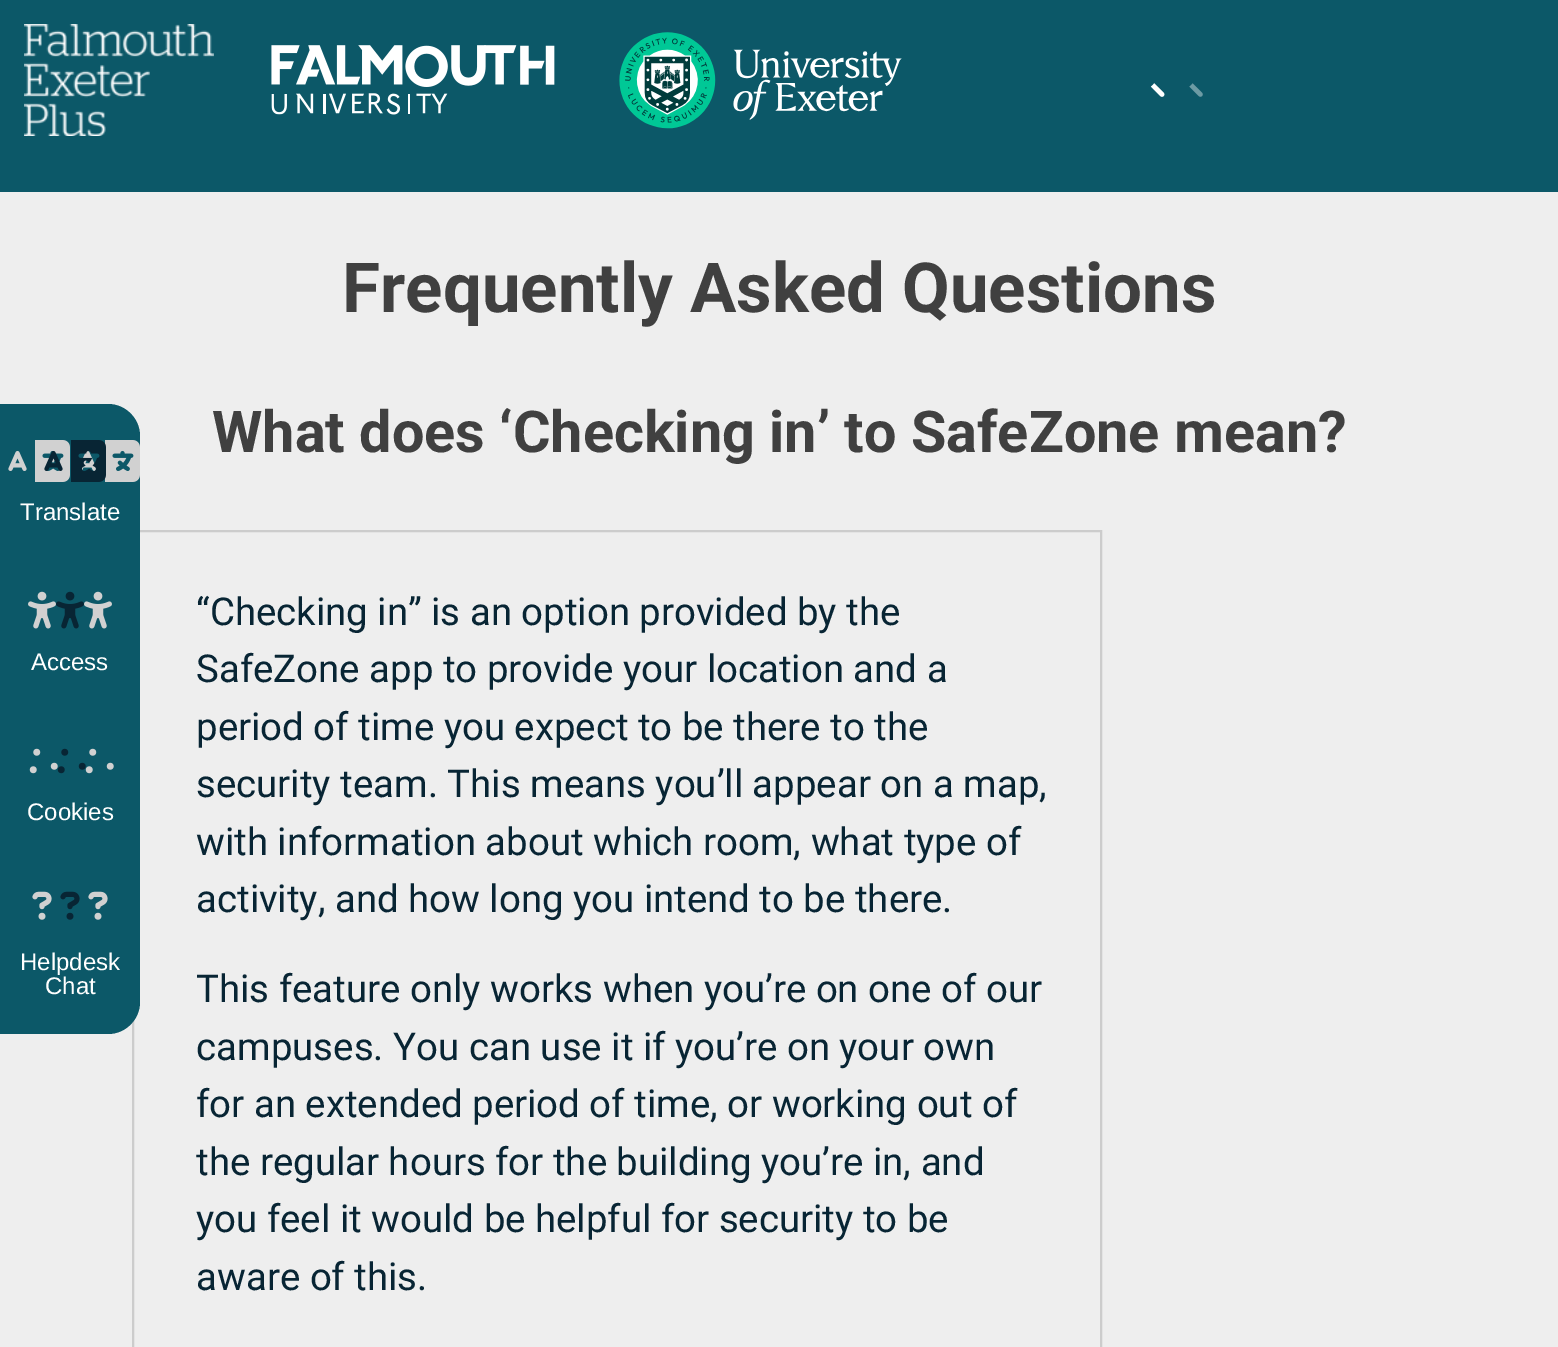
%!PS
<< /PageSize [1558 1347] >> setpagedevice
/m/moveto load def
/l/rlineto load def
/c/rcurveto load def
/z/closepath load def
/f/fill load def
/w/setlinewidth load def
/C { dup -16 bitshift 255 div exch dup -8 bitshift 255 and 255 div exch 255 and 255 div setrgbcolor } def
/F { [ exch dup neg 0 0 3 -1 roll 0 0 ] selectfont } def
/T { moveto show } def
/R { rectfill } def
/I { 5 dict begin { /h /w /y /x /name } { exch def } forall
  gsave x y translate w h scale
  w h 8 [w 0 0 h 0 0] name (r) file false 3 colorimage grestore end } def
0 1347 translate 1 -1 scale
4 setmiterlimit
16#EEEEEE C
0 0 1558 1347 R
16#0C5868 C
0 0 1558 192 R
(1.rgb) 24 24 190 112 I
(2.rgb) 271 45 284 70 I
(3.rgb) 619 32 283 97 I
(4.rgb) 1150 83 15 14 I
(5.rgb) 1151 83 52 14 I
16#CCCCCC C
2 w
133 531 968 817 rectstroke
16#0C5868 C
0 404 m 108 0 l 17.5 0 32 14.5 32 32 c 0 566 l 0 17.5 -14.5 32 -32 32 c -108 0 l z f
(6.rgb) 8 440 132 42 I
(7.rgb) 44 440 62 42 I
/LiberationSans-Regular 24 F
16#FFFFFF C
(Translate) 20 520 T
(8.rgb) 28 591 84 38 I
(9.rgb) 56 591 28 38 I
(Access) 31 670 T
(10.rgb) 29 748 85 26 I
(11.rgb) 57 748 29 26 I
(Cookies) 27 820 T
(12.rgb) 32 891 76 29 I
(13.rgb) 60 891 20 29 I
(Helpdesk) 20 970 T
(Chat) 45 994 T
/Roboto-Bold 69.1 F
16#404040 C
(Frequently Asked Questions) 342 312 T
/Roboto-Bold 57.6 F
(What does ‘Checking in’ to SafeZone mean?) 212 452 T
/Roboto-Regular 38.4 F
16#082534 C
(“Checking in” is an option provided by the) 196 625 T
(SafeZone app to provide your location and a) 196 682 T
(period of time you expect to be there to the) 196 740 T
(security team. This means you’ll appear on a map,) 196 797 T
(with information about which room, what type of) 196 855 T
(activity, and how long you intend to be there.) 196 912 T
(This feature only works when you’re on one of our) 196 1002 T
(campuses. You can use it if you’re on your own) 196 1060 T
(for an extended period of time, or working out of) 196 1117 T
(the regular hours for the building you’re in, and) 196 1175 T
(you feel it would be helpful for security to be) 196 1232 T
(aware of this.) 196 1290 T
showpage
